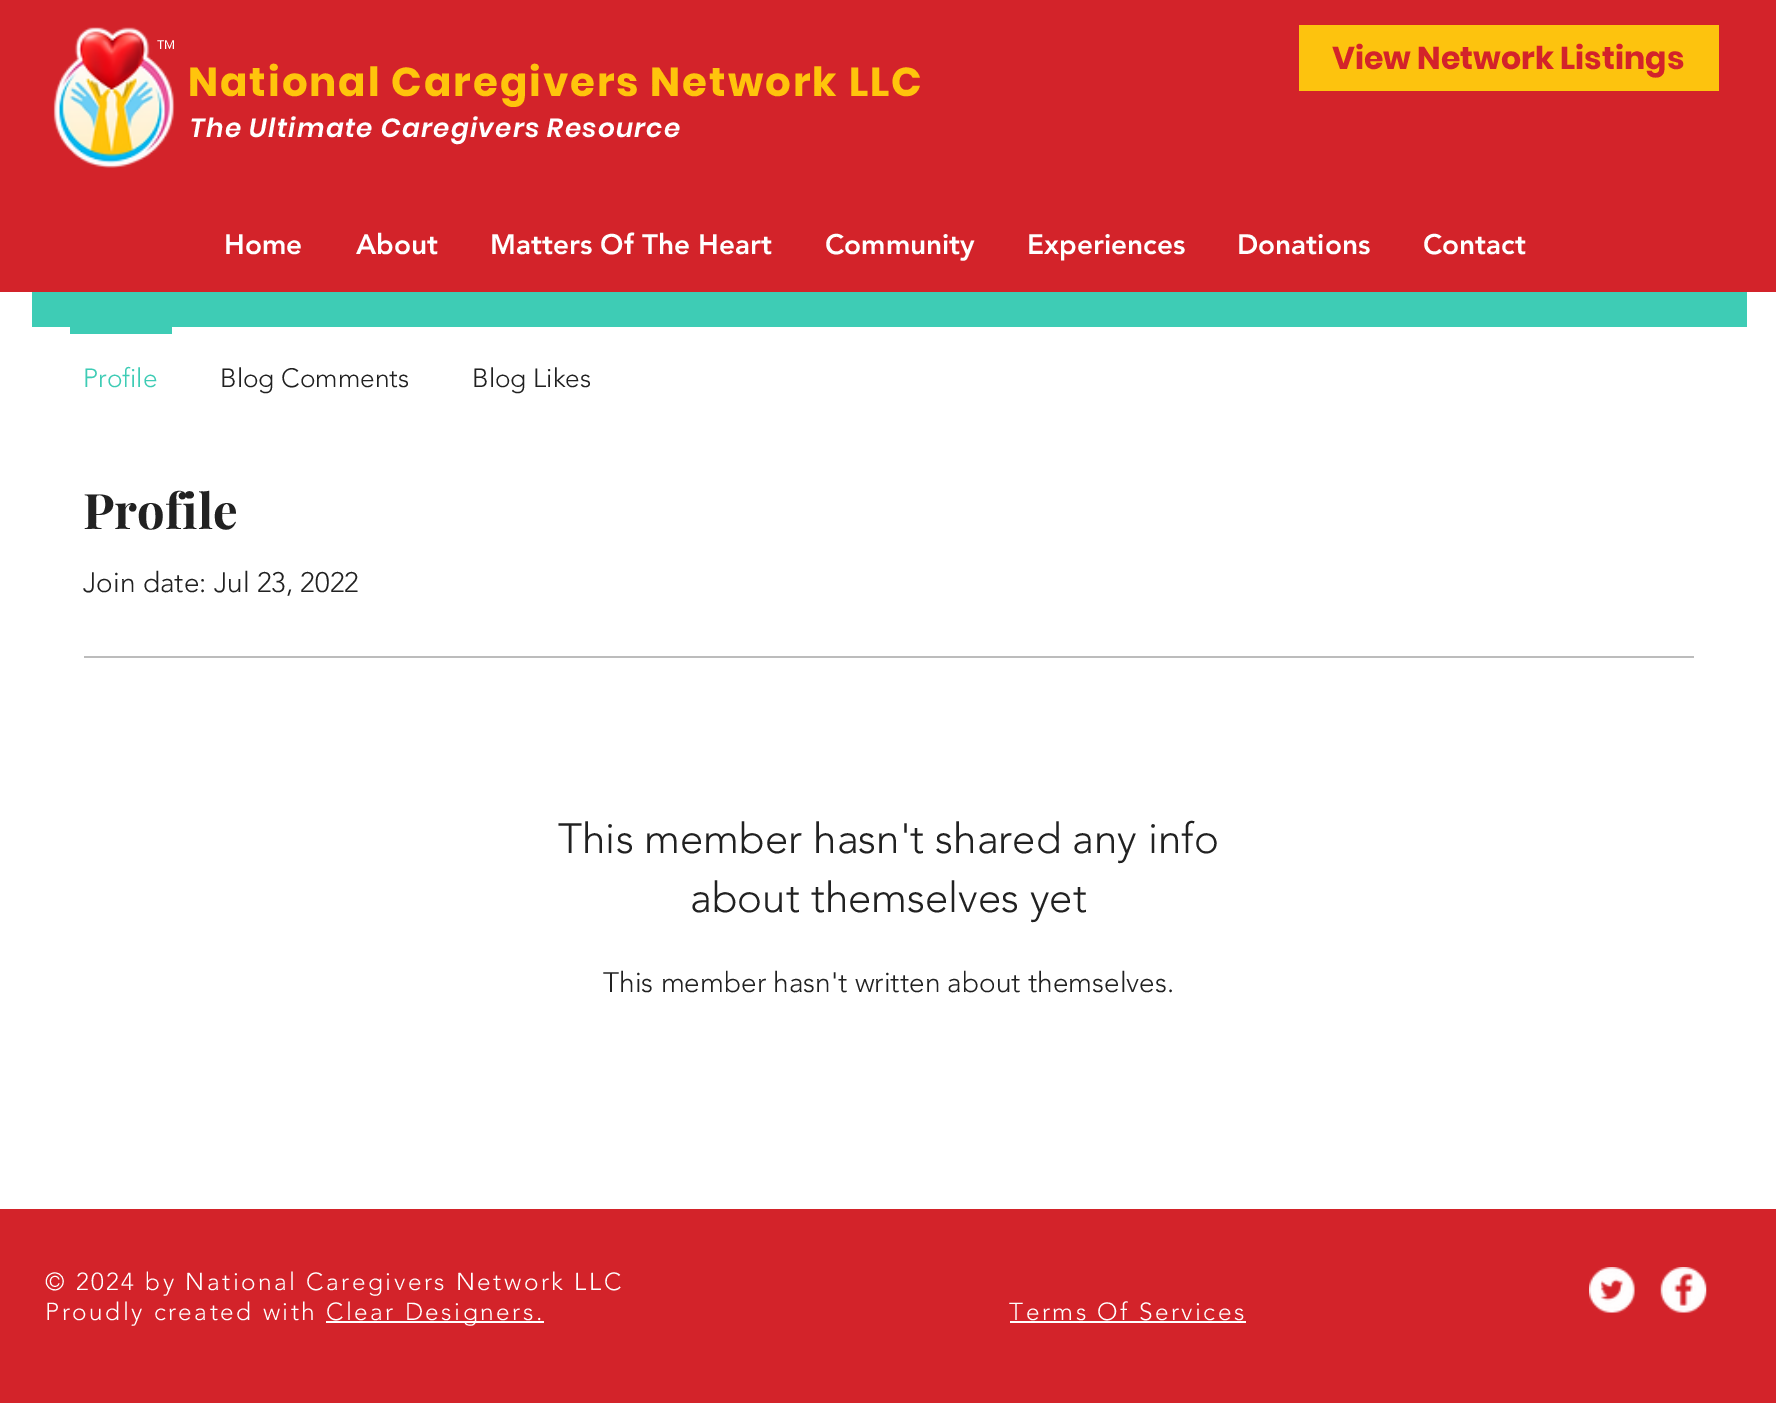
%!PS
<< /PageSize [1776 1403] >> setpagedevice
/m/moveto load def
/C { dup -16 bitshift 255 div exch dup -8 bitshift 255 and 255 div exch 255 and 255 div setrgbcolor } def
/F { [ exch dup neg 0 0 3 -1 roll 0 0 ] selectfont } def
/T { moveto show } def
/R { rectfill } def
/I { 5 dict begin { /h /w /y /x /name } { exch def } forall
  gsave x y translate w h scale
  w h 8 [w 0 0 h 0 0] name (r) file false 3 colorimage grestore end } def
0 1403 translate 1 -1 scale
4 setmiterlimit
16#FFFFFF C
0 0 1776 1403 R
16#D3232A C
0 0 1776 292 R
(1.rgb) 53 27 122 141 I
/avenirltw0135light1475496-Bold 12 F
16#FFFFFF C
(TM) 157 49 T
/Poppins-Bold 40.25 F
16#FFC40C C
188 96 m 2 0 (National Caregivers) ashow
650 96 m 2 0 (Network LLC) ashow
16#FDC30E C
1299 25 420 66 R
/Poppins-Bold 31.5 F
16#D3232A C
(View Network Listings) 1332 69 T
/Poppins-SemiBoldItalic 26.25 F
16#FFFFFF C
190 137 m 1.3 0 (The Ultimate Caregivers Resource) ashow
/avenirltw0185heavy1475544-Black 28 F
(Home) 224 254 T
(About) 356 254 T
(Matters Of The Heart) 490 254 T
(Community) 825 254 T
(Experiences) 1027 254 T
(Donations) 1237 254 T
(Contact) 1423 254 T
16#3ECCB5 C
32 292 1715 35 R
70 327 102 7 R
/avenirltw0135light1475496-Light 26.25 F
(Profile) 83 387 T
16#212121 C
(Blog Comments) 220 387 T
(Blog Likes) 472 387 T
/PlayfairDisplay-Bold 49 F
(Profile) 83 529 T
/avenirltw0135light1475496-Light 28 F
(Join date: Jul 23, 2022) 83 592 T
16#BCBCBC C
84 656 1610 2 R
/avenirltw0135light1475496-Light 42 F
16#212121 C
(This member hasn't shared any info) 558 853 T
(about themselves yet) 690 912 T
/avenirltw0135light1475496-Light 28 F
(This member hasn't written about themselves.) 603 992 T
16#D3232A C
0 1209 1776 194 R
/avenirltw0135light1475496-Light 24.5 F
16#FFFFFF C
45 1290 m 2.45 0 (© 2024 by National Caregivers Network LLC) ashow
45 1320 m 2.45 0 (Proudly created with) ashow
326 1321 218 2 R
326 1320 m 2.45 0 (Clear Designers.) ashow
1009 1320 m 2.45 0 (Terms Of Services) ashow
1010 1321 236 2 R
(2.rgb) 1589 1267 46 46 I
(3.rgb) 1660 1267 47 46 I
showpage
